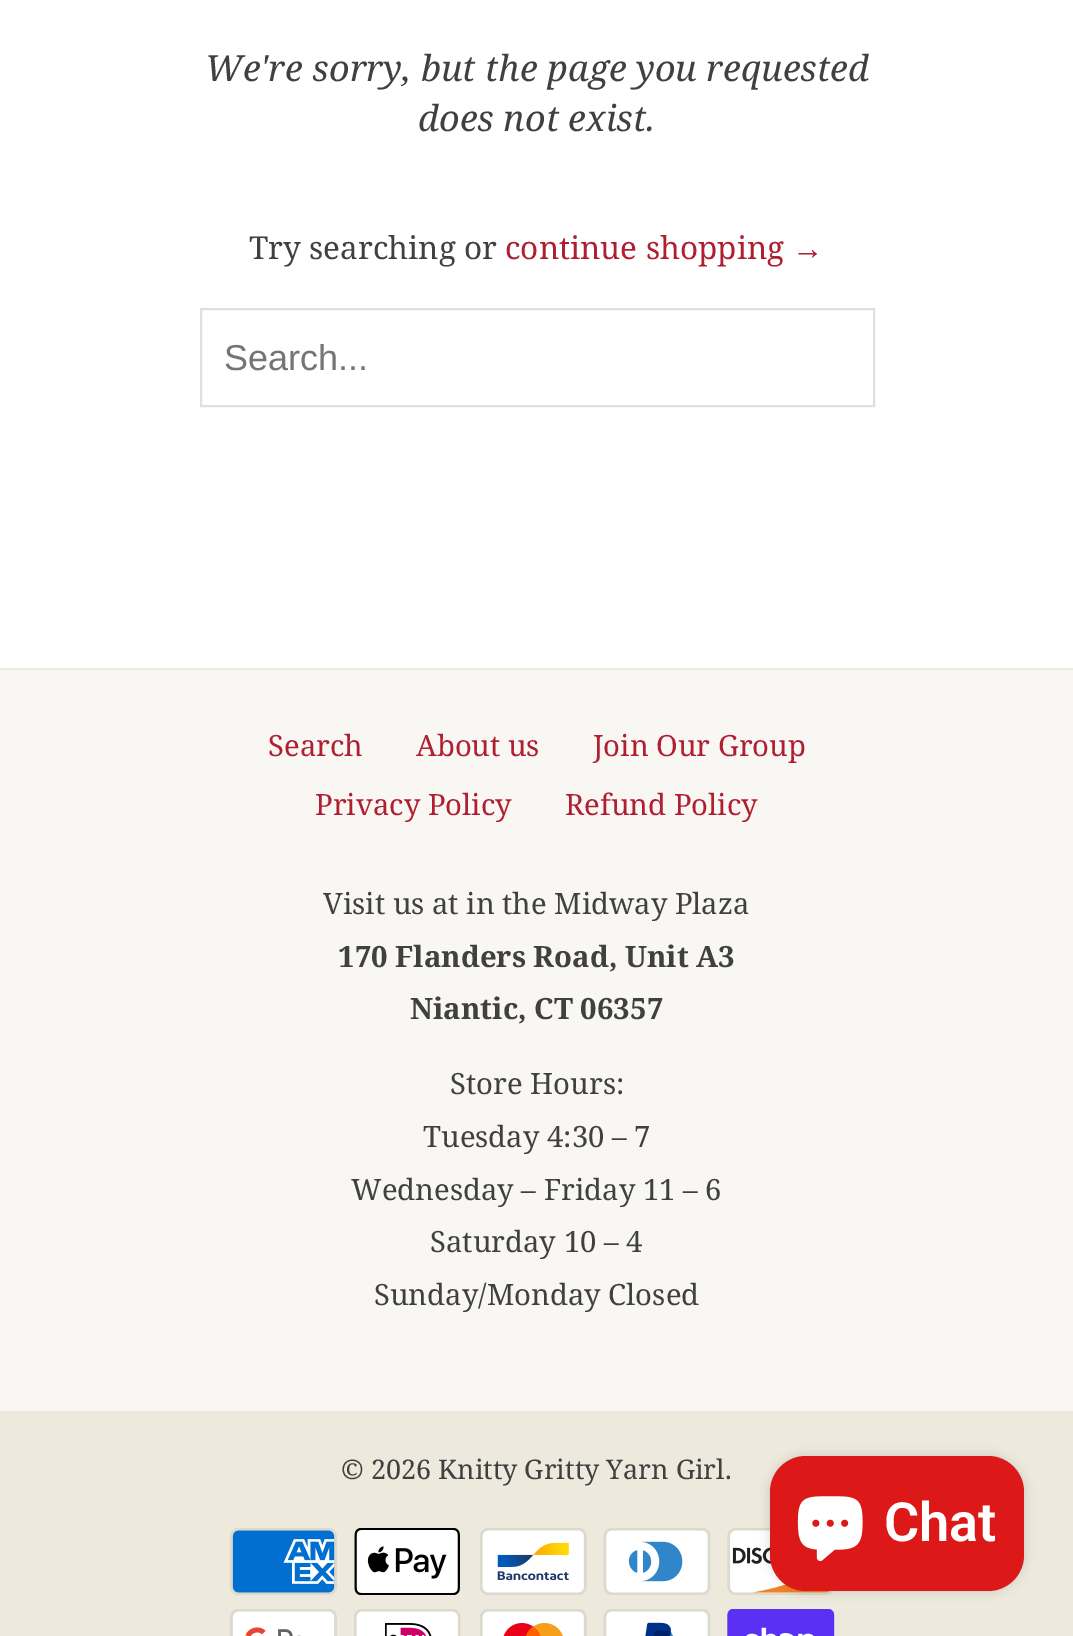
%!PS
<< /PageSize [1073 1636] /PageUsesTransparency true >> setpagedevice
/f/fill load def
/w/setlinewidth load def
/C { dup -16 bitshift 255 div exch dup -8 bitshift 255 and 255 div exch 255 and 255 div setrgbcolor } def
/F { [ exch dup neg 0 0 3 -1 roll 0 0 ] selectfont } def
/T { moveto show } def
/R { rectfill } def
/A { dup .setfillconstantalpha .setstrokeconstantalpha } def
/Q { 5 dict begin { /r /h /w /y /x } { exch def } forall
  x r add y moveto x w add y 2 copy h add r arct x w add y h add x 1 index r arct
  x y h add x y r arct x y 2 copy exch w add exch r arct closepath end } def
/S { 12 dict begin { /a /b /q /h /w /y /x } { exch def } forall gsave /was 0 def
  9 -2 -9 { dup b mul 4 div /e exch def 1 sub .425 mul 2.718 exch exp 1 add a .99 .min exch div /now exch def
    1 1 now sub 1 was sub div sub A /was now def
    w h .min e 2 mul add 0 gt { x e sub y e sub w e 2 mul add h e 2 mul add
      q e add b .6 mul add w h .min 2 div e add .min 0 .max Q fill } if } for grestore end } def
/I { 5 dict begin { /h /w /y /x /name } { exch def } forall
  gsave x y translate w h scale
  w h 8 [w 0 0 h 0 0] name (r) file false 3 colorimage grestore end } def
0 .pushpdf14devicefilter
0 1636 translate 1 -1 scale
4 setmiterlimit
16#FFFFFF C
0 0 1073 1636 R
/NotoSerif-Italic 36 F
16#404040 C
(We're sorry, but the page you requested) 205 81 T
(does not exist.) 418 131 T
/NotoSerif-Regular 31.5 F
(Try searching or) 249 259 T
16#AF1F31 C
(continue shopping) 505 259 T
/LiberationSerif-Regular 31.5 F
(→) 792 259 T
16#DCE0E0 C
2 w
201 309 673 97 rectstroke
/LiberationSans-Regular 36 F
16#757575 C
(Search...) 224 370 T
16#F9F7F3 C
0 670 1073 741 R
16#EDE9DD C
0 668 1073 2 R
/NotoSerif-Regular 29.25 F
16#AF1F31 C
(Search) 268 756 T
(About us) 416 756 T
(Join Our Group) 593 756 T
(Privacy Policy) 315 815 T
(Refund Policy) 565 815 T
16#404040 C
(Visit us at in the Midway Plaza) 323 914 T
/NotoSerif-Bold 29.25 F
(170 Flanders Road, Unit A3) 338 967 T
(Niantic, CT 06357) 410 1019 T
/NotoSerif-Regular 29.25 F
(Store Hours:) 450 1094 T
(Tuesday 4:30 – 7) 423 1147 T
(Wednesday – Friday 11 – 6) 351 1200 T
(Saturday 10 – 4) 430 1252 T
(Sunday/Monday Closed) 374 1305 T
16#EDE9DD C
0 1411 1073 225 R
/NotoSerif-Regular 27 F
16#404040 C
(© 2026 Knitty Gritty Yarn Girl.) 341 1479 T
(1.rgb) 230 1528 107 67 I
(2.rgb) 354 1528 106 67 I
(3.rgb) 480 1528 107 67 I
(4.rgb) 603 1528 108 67 I
(5.rgb) 727 1528 106 67 I
(6.rgb) 230 1609 107 27 I
(7.rgb) 354 1609 107 27 I
(8.rgb) 480 1609 107 27 I
(9.rgb) 603 1609 108 27 I
(10.rgb) 727 1609 108 27 I
16#000000 C
770 1456 254 135 36 5.5 .15 S
16#DC1818 C
770 1456 254 135 36 Q f
(11.rgb) 797 1496 66 65 I
/Roboto-SemiBold 54 F
16#FFFFFF C
(Chat) 884 1541 T
.poppdf14devicefilter showpage
